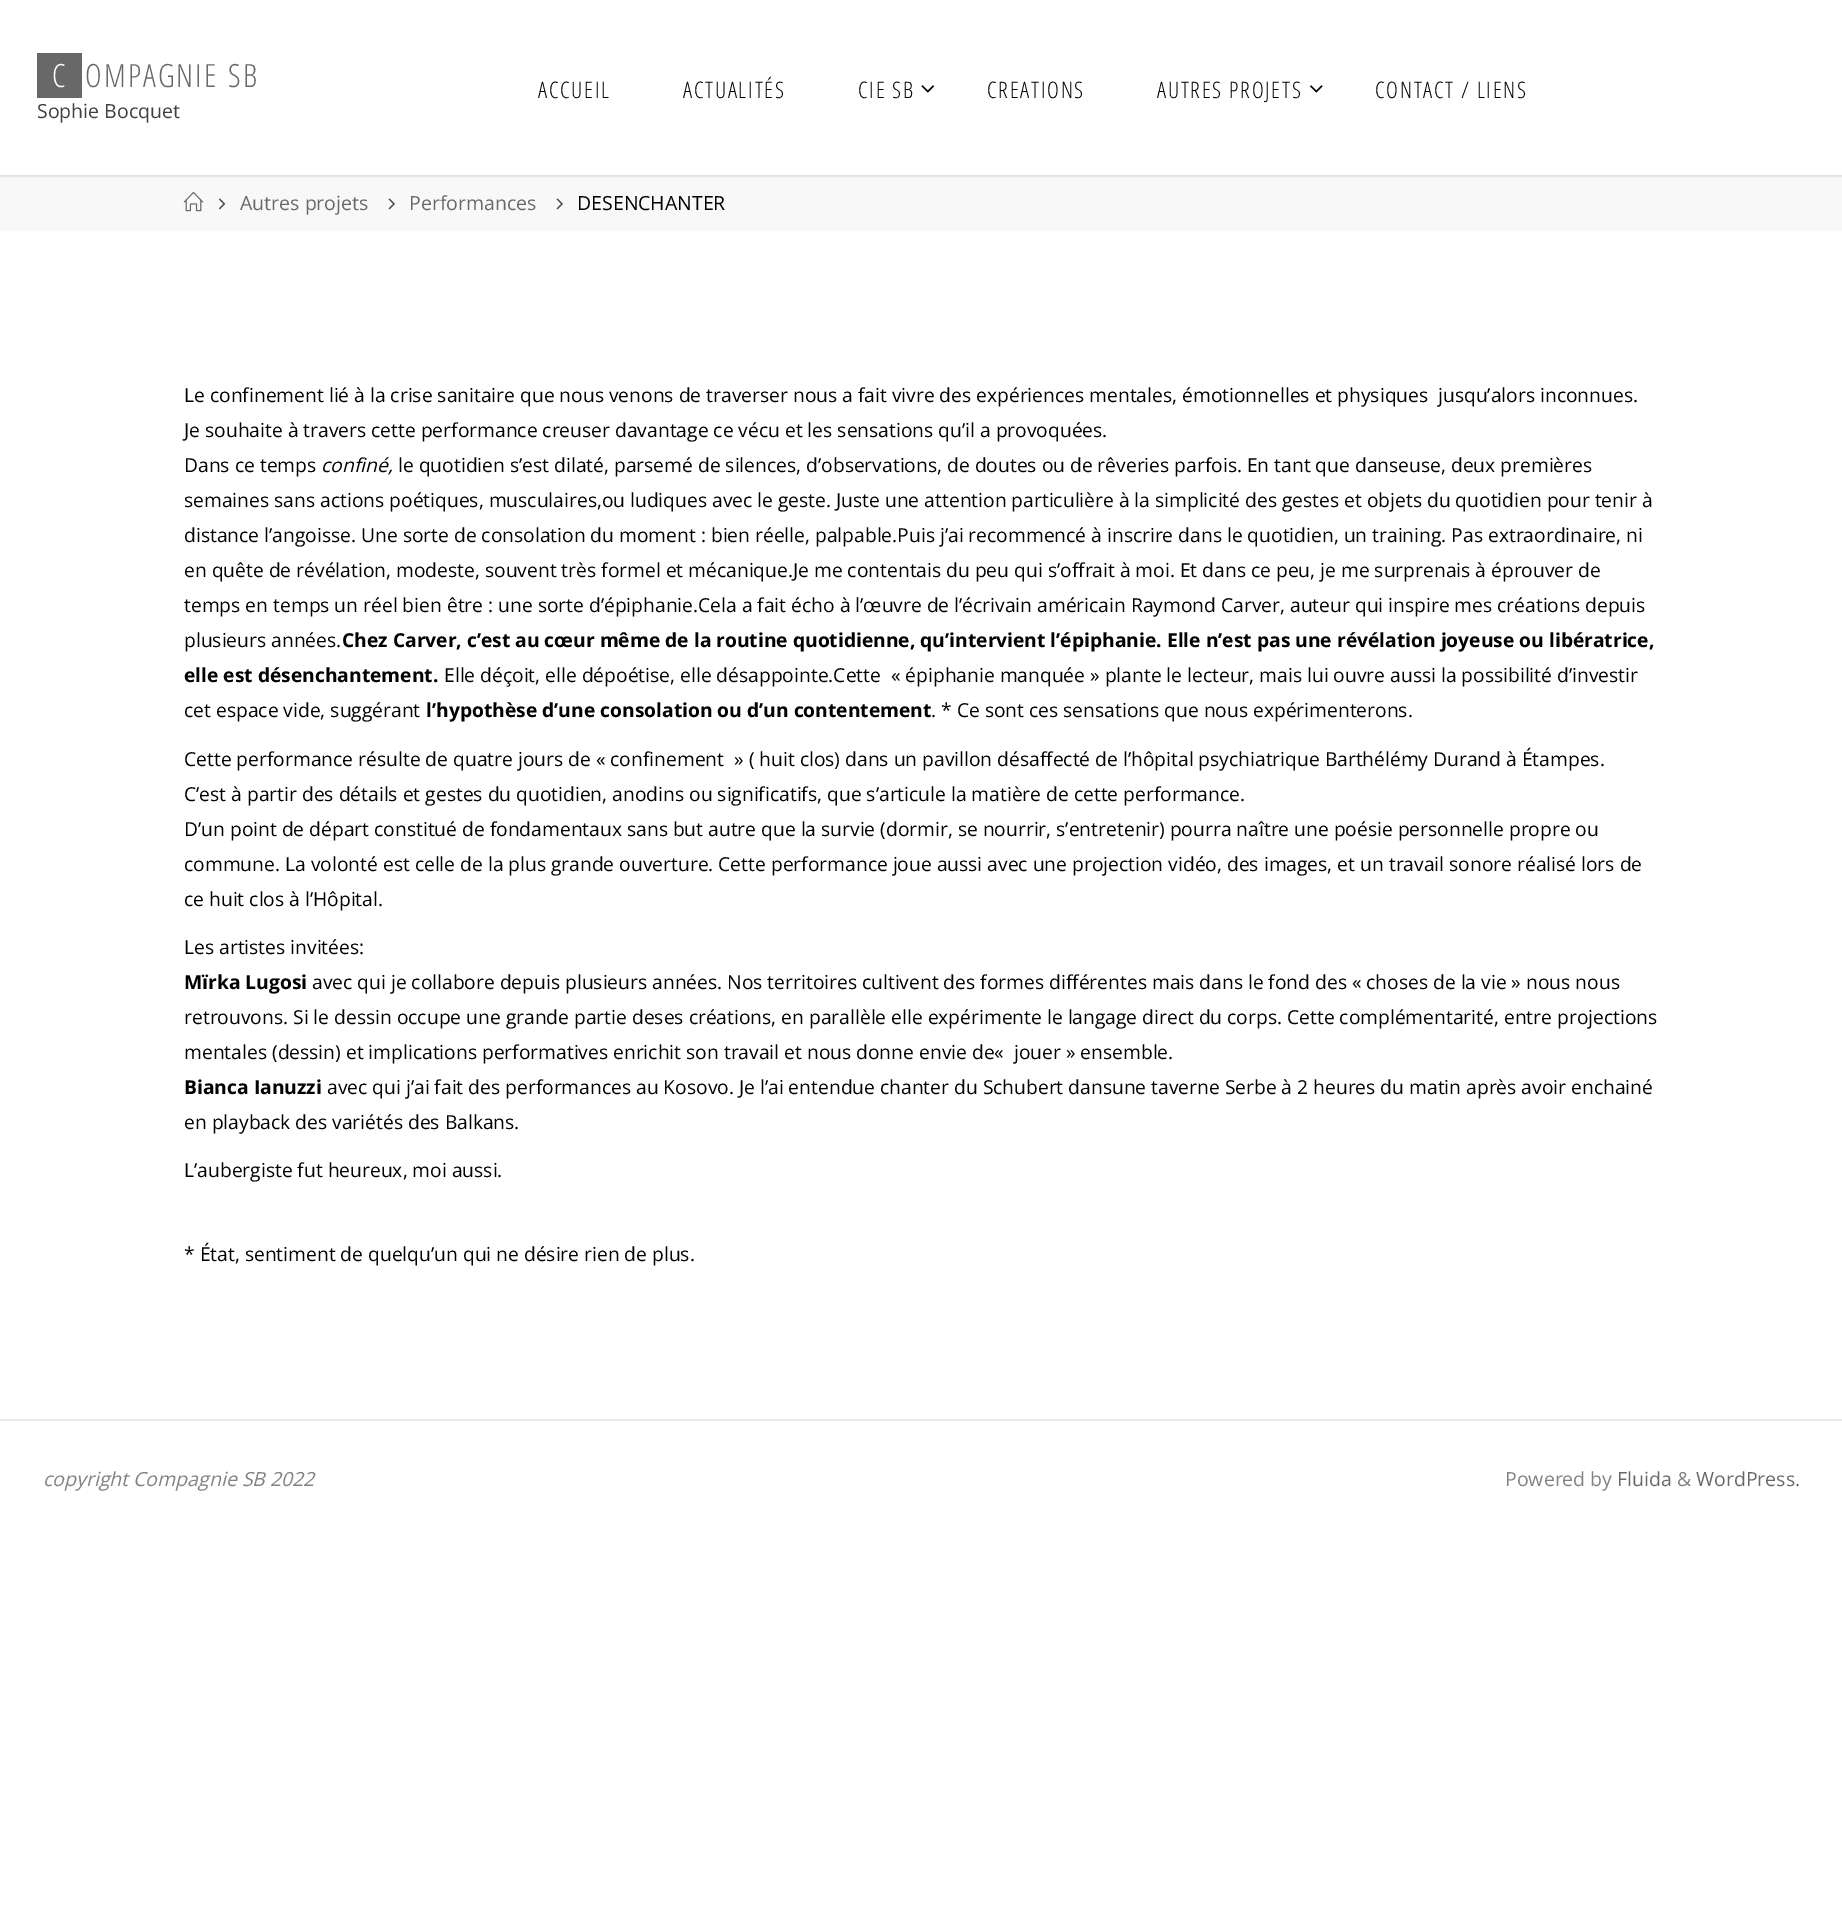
%!PS
<< /PageSize [1842 1925] /PageUsesTransparency true >> setpagedevice
/m/moveto load def
/q/gsave load def
/Q_/grestore load def
/C { dup -16 bitshift 255 div exch dup -8 bitshift 255 and 255 div exch 255 and 255 div setrgbcolor } def
/F { [ exch dup neg 0 0 3 -1 roll 0 0 ] selectfont } def
/T { moveto show } def
/R { rectfill } def
/A { dup .setfillconstantalpha .setstrokeconstantalpha } def
/Q { 5 dict begin { /r /h /w /y /x } { exch def } forall
  x r add y moveto x w add y 2 copy h add r arct x w add y h add x 1 index r arct
  x y h add x y r arct x y 2 copy exch w add exch r arct closepath end } def
/S { 12 dict begin { /a /b /q /h /w /y /x } { exch def } forall gsave /was 0 def
  9 -2 -9 { dup b mul 4 div /e exch def 1 sub .425 mul 2.718 exch exp 1 add a .99 .min exch div /now exch def
    1 1 now sub 1 was sub div sub A /was now def
    w h .min e 2 mul add 0 gt { x e sub y e sub w e 2 mul add h e 2 mul add
      q e add b .6 mul add w h .min 2 div e add .min 0 .max Q fill } if } for grestore end } def
/I { 5 dict begin { /h /w /y /x /name } { exch def } forall
  gsave x y translate w h scale
  w h 8 [w 0 0 h 0 0] name (r) file false 3 colorimage grestore end } def
0 .pushpdf14devicefilter
0 1925 translate 1 -1 scale
4 setmiterlimit
16#FFFFFF C
0 0 1842 1925 R
16#F8F8F8 C
0 175 1842 56 R
q
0 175 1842 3 rectclip
16#000000 C
0 0 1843 175 0 2.5 .2 S
Q_
16#686868 C
37 53 45 45 R
/OpenSansCondensed-Light 32 F
16#FFFFFF C
(C) 52 87 T
16#686868 C
(O) 85 87 T
(M) 104 87 T
(P) 128 87 T
(A) 143 87 T
(G) 158 87 T
(N) 176 87 T
(I) 195 87 T
(E) 204 87 T
(S) 228 87 T
(B) 243 87 T
/OpenSans-Regular 19.5 F
16#404040 C
(Sophie Bocquet) 37 118 T
/OpenSansCondensed-Light 22.75 F
16#000000 C
538 98 m 1.75 0 (ACCUEIL) ashow
683 98 m 1.75 0 (ACTUALITÉS) ashow
858 98 m 1.75 0 (CIE SB) ashow
(1.rgb) 921 85 14 8 I
987 98 m 1.75 0 (CREATIONS) ashow
1157 98 m 1.75 0 (AUTRES PROJETS) ashow
(2.rgb) 1310 85 13 8 I
1375 98 m 1.75 0 (CONTACT / LIENS) ashow
(3.rgb) 183 191 21 21 I
(4.rgb) 218 198 8 12 I
/OpenSans-Regular 19.5 F
16#686868 C
(Autres projets) 240 210 T
(5.rgb) 388 198 7 12 I
(Performances) 409 210 T
(5.rgb) 556 198 7 12 I
16#000000 C
(DESENCHANTER) 577 210 T
/OpenSans-Regular 19.25 F
(Le confinement lié à la crise sanitaire que nous venons de traverser nous a fait vivre des expériences mentales, émotionnelles et physiques  jusqu’alors inconnues.) 184 402 T
(Je souhaite à travers cette performance creuser davantage ce vécu et les sensations qu’il a provoquées.) 184 437 T
(Dans ce temps) 184 472 T
/OpenSans-Italic 19.25 F
(confiné,) 321 472 T
/OpenSans-Regular 19.25 F
(le quotidien s’est dilaté, parsemé de silences, d’observations, de doutes ou de rêveries parfois. En tant que danseuse, deux premières) 398 472 T
(semaines sans actions poétiques, musculaires,ou ludiques avec le geste. Juste une attention particulière à la simplicité des gestes et objets du quotidien pour tenir à) 184 507 T
(distance l’angoisse. Une sorte de consolation du moment : bien réelle, palpable.Puis j’ai recommencé à inscrire dans le quotidien, un training. Pas extraordinaire, ni) 184 542 T
(en quête de révélation, modeste, souvent très formel et mécanique.Je me contentais du peu qui s’offrait à moi. Et dans ce peu, je me surprenais à éprouver de) 184 577 T
(temps en temps un réel bien être : une sorte d’épiphanie.Cela a fait écho à l’œuvre de l’écrivain américain Raymond Carver, auteur qui inspire mes créations depuis) 184 612 T
(plusieurs années.) 184 647 T
/OpenSans-Bold 19.25 F
(Chez Carver, c’est au cœur même de la routine quotidienne, qu’intervient l’épiphanie. Elle n’est pas une révélation joyeuse ou libératrice,) 342 647 T
(elle est désenchantement.) 184 682 T
/OpenSans-Regular 19.25 F
(Elle déçoit, elle dépoétise, elle désappointe.Cette  « épiphanie manquée » plante le lecteur, mais lui ouvre aussi la possibilité d’investir) 444 682 T
(cet espace vide, suggérant) 184 717 T
/OpenSans-Bold 19.25 F
(l’hypothèse d’une consolation ou d’un contentement) 426 717 T
/OpenSans-Regular 19.25 F
(. * Ce sont ces sensations que nous expérimenterons.) 931 717 T
(Cette performance résulte de quatre jours de « confinement  » \( huit clos\) dans un pavillon désaffecté de l’hôpital psychiatrique Barthélémy Durand à Étampes.) 184 766 T
(C’est à partir des détails et gestes du quotidien, anodins ou significatifs, que s’articule la matière de cette performance.) 184 801 T
(D’un point de départ constitué de fondamentaux sans but autre que la survie \(dormir, se nourrir, s’entretenir\) pourra naître une poésie personnelle propre ou) 184 836 T
(commune. La volonté est celle de la plus grande ouverture. Cette performance joue aussi avec une projection vidéo, des images, et un travail sonore réalisé lors de) 184 871 T
(ce huit clos à l’Hôpital.) 184 906 T
(Les artistes invitées:) 184 954 T
/OpenSans-Bold 19.25 F
(Mïrka Lugosi) 184 989 T
/OpenSans-Regular 19.25 F
(avec qui je collabore depuis plusieurs années. Nos territoires cultivent des formes différentes mais dans le fond des « choses de la vie » nous nous) 312 989 T
(retrouvons. Si le dessin occupe une grande partie deses créations, en parallèle elle expérimente le langage direct du corps. Cette complémentarité, entre projections) 184 1024 T
(mentales \(dessin\) et implications performatives enrichit son travail et nous donne envie de«  jouer » ensemble.) 184 1059 T
/OpenSans-Bold 19.25 F
(Bianca Ianuzzi) 184 1094 T
/OpenSans-Regular 19.25 F
(avec qui j’ai fait des performances au Kosovo. Je l’ai entendue chanter du Schubert dansune taverne Serbe à 2 heures du matin après avoir enchainé) 327 1094 T
(en playback des variétés des Balkans.) 184 1129 T
(L’aubergiste fut heureux, moi aussi.) 184 1177 T
(* État, sentiment de quelqu’un qui ne désire rien de plus.) 184 1261 T
16#EBEBEB C
0 1419 1842 2 R
/OpenSans-Italic 19.5 F
16#828282 C
(copyright Compagnie SB 2022) 43 1486 T
/OpenSans-Regular 19.5 F
(Powered by) 1505 1486 T
16#686868 C
(Fluida) 1617 1486 T
16#828282 C
(&) 1677 1486 T
16#686868 C
(WordPress.) 1696 1486 T
.poppdf14devicefilter showpage
